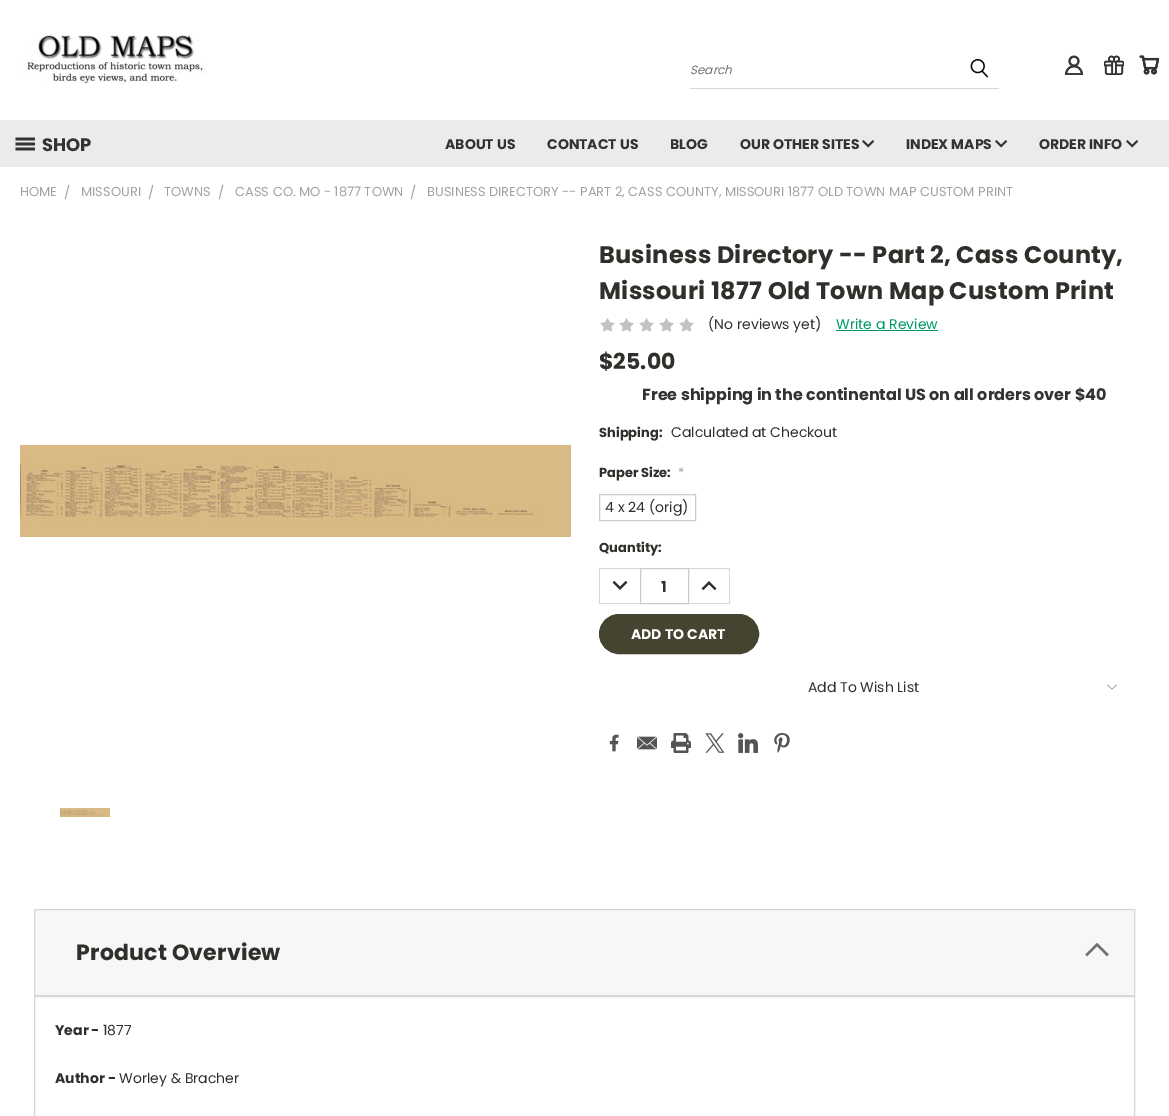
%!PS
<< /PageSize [1169 1116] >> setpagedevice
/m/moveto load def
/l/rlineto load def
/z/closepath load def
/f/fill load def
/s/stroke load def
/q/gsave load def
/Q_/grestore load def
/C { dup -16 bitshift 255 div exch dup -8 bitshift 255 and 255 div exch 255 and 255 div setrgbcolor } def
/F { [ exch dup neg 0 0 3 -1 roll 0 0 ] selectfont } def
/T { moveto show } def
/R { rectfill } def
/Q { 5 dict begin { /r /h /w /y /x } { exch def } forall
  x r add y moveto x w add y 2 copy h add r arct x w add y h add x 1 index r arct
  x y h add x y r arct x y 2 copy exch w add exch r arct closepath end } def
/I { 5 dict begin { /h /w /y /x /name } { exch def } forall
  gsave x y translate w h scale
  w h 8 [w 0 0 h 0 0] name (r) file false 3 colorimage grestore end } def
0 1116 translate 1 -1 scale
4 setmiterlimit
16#FFFFFF C
0 0 1169 1116 R
(1.rgb) 23 35 184 48 I
16#D7D7D7 C
690 88 309 1 R
/Poppins-Italic 12 F
16#70706E C
(Search) 690 74 T
(2.rgb) 970 59 18 19 I
(3.rgb) 1065 55 18 20 I
(4.rgb) 1104 55 20 20 I
(5.rgb) 1139 55 20 20 I
16#EBEBEB C
0 120 1169 47 R
(6.rgb) 15 137 20 14 I
/Poppins-Bold 18 F
16#333333 C
(SHOP) 42 151 T
/Poppins-Bold 14 F
(ABOUT US) 445 149 T
(CONTACT US) 547 149 T
(BLOG) 670 149 T
(OUR OTHER SITES) 740 149 T
(7.rgb) 862 140 12 8 I
(INDEX MAPS) 906 149 T
(7.rgb) 995 140 12 8 I
(ORDER INFO) 1039 149 T
(7.rgb) 1126 140 12 8 I
/Poppins-Regular 13 F
16#A2A2A2 C
(HOME) 20 196 T
(/) 64 197 T
(MISSOURI) 81 196 T
(/) 148 197 T
(TOWNS) 164 196 T
(/) 218 197 T
(CASS CO. MO - 1877 TOWN) 235 196 T
(/) 410 197 T
(BUSINESS DIRECTORY -- PART 2, CASS COUNTY, MISSOURI 1877 OLD TOWN MAP CUSTOM PRINT) 427 196 T
/Poppins-Bold 24 F
16#2F2F2B C
599 263 m .25 0 (Business Directory -- Part 2, Cass County,) ashow
599 299 m .25 0 (Missouri 1877 Old Town Map Custom Print) ashow
(8.rgb) 600 318 15 14 I
(8.rgb) 619 318 15 14 I
(8.rgb) 639 318 15 14 I
(8.rgb) 659 318 15 14 I
(8.rgb) 679 318 15 14 I
/Poppins-Regular 14 F
(\(No reviews yet\)) 708 329 T
16#009966 C
(Write a Review) 836 329 T
836 330 102 1 R
/Poppins-Bold 22 F
16#2F2F2B C
($25.00) 599 369 T
/Poppins-Bold 16 F
16#333333 C
(Free shipping in the continental US on all orders over $40) 642 400 T
(9.rgb) 20 445 551 92 I
(10.rgb) 60 808 50 9 I
/Poppins-Bold 13 F
16#2F2F2B C
(Shipping:) 599 437 T
/Poppins-Regular 14 F
(Calculated at Checkout) 671 437 T
/Poppins-Bold 13 F
(Paper Size:) 599 477 T
/Poppins-Regular 13 F
16#A2A2A2 C
(*) 678 477 T
16#CCCCCC C
599.5 494.5 96 26 rectstroke
/Poppins-Regular 14 F
16#2F2F2B C
(4 x 24 \(orig\)) 605 512 T
/Poppins-Bold 13 F
(Quantity:) 599 552 T
16#D7D7D7 C
599 568 41 1 R
599 603 41 1 R
599 568 1 36 R
(11.rgb) 612 580 16 10 I
16#CCCCCC C
640.5 568.5 48 35 rectstroke
/Poppins-Bold 15 F
16#2F2F2B C
(1) 661 592 T
16#D7D7D7 C
689 568 41 1 R
729 568 1 36 R
689 603 41 1 R
(12.rgb) 701 581 16 10 I
16#444430 C
599.5 614.5 159 39 19.5 Q q f Q_
s
/Poppins-Bold 14 F
16#FFFFFF C
(ADD TO CART) 631 639 T
/Poppins-Regular 14 F
16#2F2F2B C
(Add To Wish List) 808 692 T
(13.rgb) 1107 684 10 6 I
(14.rgb) 609 734 10 18 I
(15.rgb) 637 736 20 14 I
(16.rgb) 671 733 20 20 I
(17.rgb) 705 733 20 20 I
(18.rgb) 738 733 20 20 I
(19.rgb) 774 733 16 20 I
16#F7F7F7 C
34.5 909.5 m 1100 0 l 0 86 l -1100 0 l z q f Q_
16#D7D7D7 C
s
/Poppins-Bold 22 F
16#2F2F2B C
76 960 m .25 0 (Product Overview) ashow
(20.rgb) 1085 942 24 15 I
16#D7D7D7 C
34.5 996.5 1100 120 rectstroke
/Poppins-Bold 14 F
16#2F2F2B C
(Year -) 55 1035 T
/Poppins-Regular 14 F
(1877) 103 1035 T
/Poppins-Bold 14 F
(Author -) 55 1083 T
/Poppins-Regular 14 F
(Worley & Bracher) 119 1083 T
showpage
